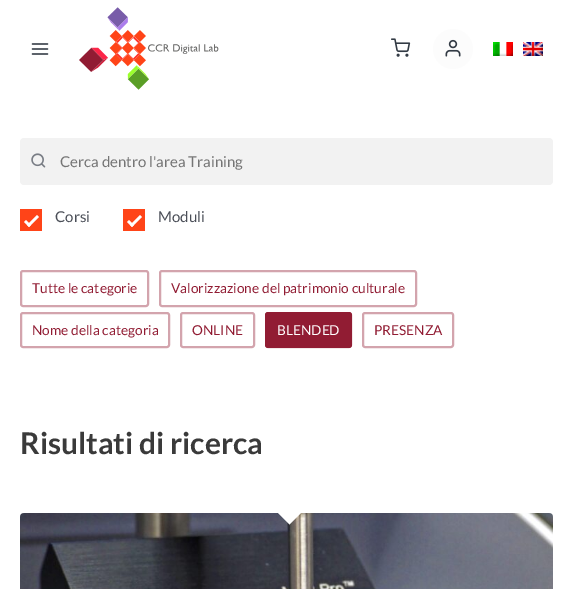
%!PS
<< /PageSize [573 589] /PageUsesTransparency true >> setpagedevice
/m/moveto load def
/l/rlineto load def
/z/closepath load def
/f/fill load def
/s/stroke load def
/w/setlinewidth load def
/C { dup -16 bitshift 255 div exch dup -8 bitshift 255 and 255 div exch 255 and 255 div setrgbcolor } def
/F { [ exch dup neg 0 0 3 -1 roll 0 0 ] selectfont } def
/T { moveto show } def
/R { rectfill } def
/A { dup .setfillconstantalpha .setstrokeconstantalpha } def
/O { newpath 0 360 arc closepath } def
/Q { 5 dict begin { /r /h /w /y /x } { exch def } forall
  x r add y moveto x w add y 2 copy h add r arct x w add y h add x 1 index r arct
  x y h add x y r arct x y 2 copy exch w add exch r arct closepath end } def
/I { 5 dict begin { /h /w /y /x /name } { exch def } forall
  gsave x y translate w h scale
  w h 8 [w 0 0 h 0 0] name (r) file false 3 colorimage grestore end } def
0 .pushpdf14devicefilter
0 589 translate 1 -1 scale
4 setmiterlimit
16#FFFFFF C
0 0 573 589 R
(1.rgb) 31 43 18 12 I
(2.rgb) 79 7 140 83 I
(3.rgb) 391 38 20 19 I
16#FCFCFC C
453 49 20 O f
(4.rgb) 445 39 16 18 I
(5.rgb) 493 42 20 14 I
(6.rgb) 523 42 20 14 I
16#F2F2F2 C
20 138 533 47 4 Q f
(7.rgb) 31 153 15 15 I
/Lato-Regular 15 F
16#757575 C
(Cerca dentro l'area Training) 60 167 T
16#FF4418 C
20 209 22 22 R
16#FFFFFF C
37 215 m 2 2 l -10 10 l -2 -2 l z f
26 220 m 5 5 l -2 2 l -5 -5 l z f
16#4B4F58 C
(Corsi) 55 222 T
16#FF4418 C
123 209 22 22 R
16#FFFFFF C
140 215 m 2 2 l -10 10 l -2 -2 l z f
129 220 m 5 5 l -2 2 l -5 -5 l z f
16#4B4F58 C
(Moduli) 158 222 T
16#D3A4AD C
2 w
21 271 127 35 2 Q s
/Lato-Regular 13.7 F
16#911C33 C
(Tutte le categorie) 32 293 T
16#D3A4AD C
160 271 256 35 2 Q s
16#911C33 C
(Valorizzazione del patrimonio culturale) 171 293 T
16#D3A4AD C
21 313 148 34 2 Q s
16#911C33 C
(Nome della categoria) 32 335 T
16#D3A4AD C
181 313 73 34 2 Q s
16#911C33 C
(ONLINE) 192 335 T
265 312 87 36 3 Q f
0.4 A
266 313 85 34 2 Q s
1 A
16#FFFFFF C
(BLENDED) 277 335 T
16#D3A4AD C
363 313 90 34 2 Q s
16#911C33 C
(PRESENZA) 374 335 T
/Lato-Bold 30 F
16#3A3A3A C
(Risultati di ricerca) 20 454 T
(8.rgb) 20 513 533 76 I
16#FFFFFF C
275.5 510.5 m 14 -14.5 l 14 14.5 l -14 14 l z f
.poppdf14devicefilter showpage
